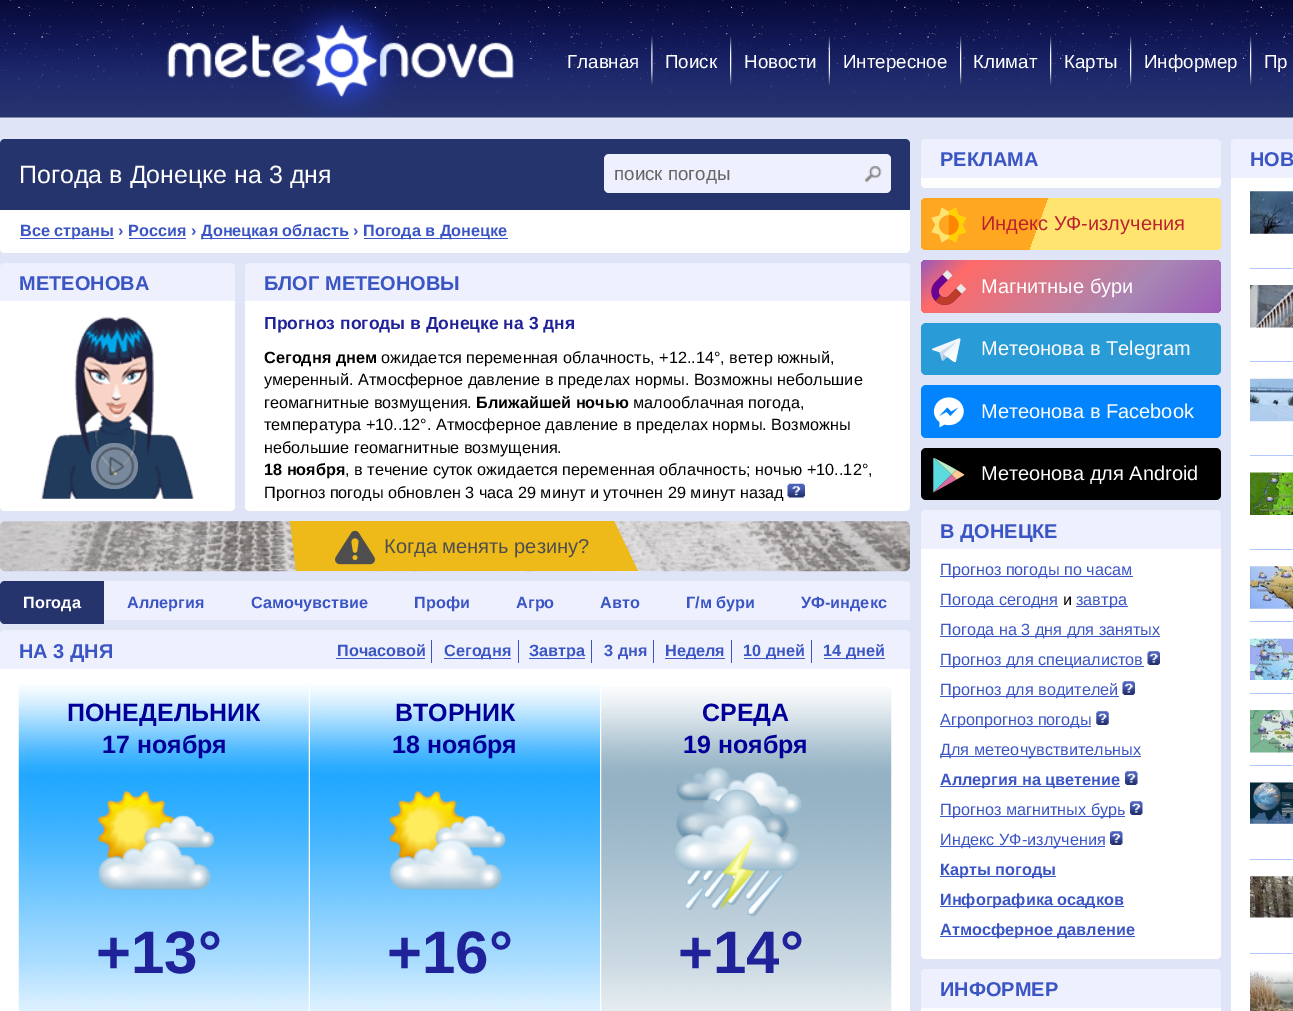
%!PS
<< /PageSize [1293 1011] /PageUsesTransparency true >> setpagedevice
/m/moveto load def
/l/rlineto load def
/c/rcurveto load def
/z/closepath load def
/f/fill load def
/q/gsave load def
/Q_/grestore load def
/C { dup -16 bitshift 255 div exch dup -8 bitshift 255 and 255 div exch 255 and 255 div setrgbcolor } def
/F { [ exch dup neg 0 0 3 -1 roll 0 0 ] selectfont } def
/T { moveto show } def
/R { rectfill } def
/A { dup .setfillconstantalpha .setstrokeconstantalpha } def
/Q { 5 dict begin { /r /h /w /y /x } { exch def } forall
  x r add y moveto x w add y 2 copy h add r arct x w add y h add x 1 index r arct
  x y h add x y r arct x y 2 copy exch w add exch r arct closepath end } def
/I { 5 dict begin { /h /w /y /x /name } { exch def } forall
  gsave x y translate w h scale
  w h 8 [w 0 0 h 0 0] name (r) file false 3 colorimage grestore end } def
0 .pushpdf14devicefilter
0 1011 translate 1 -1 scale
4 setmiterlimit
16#DFE5F7 C
0 0 1293 1011 R
(1.rgb) 0 0 1293 118 I
(2.rgb) 167 0 347 117 I
/LiberationSans-Regular 18.75 F
16#FFFFFF C
(Главная) 567 68 T
(3.rgb) 651 36 2 49 I
(Поиск) 665 68 T
(4.rgb) 730 36 2 49 I
(Новости) 744 68 T
(5.rgb) 828 36 2 49 I
(Интересное) 843 68 T
(6.rgb) 960 36 2 49 I
(Климат) 973 68 T
(7.rgb) 1050 36 2 49 I
(Карты) 1064 68 T
(8.rgb) 1130 36 2 49 I
(Информер) 1144 68 T
(9.rgb) 1250 36 2 49 I
(Пр) 1264 68 T
16#26346E C
5 139 m 900 0 l 3 0 5 2 5 5 c 0 66 l -910 0 l 0 -66 l 0 -3 2 -5 5 -5 c z f
/LiberationSans-Regular 25 F
16#FFFFFF C
(Погода в Донецке на 3 дня) 19 183 T
16#EEF1FD C
604 154 287 39 5 Q f
/LiberationSans-Regular 18.75 F
16#666666 C
(поиск погоды) 614 180 T
(10.rgb) 865 166 17 17 I
16#FFFFFF C
0 210 910 33 R
16#3B55C5 C
20 238 94 1 R
/LiberationSans-Bold 16.25 F
(Все страны › Россия ›) 20 236 T
129 238 57 1 R
201 238 148 1 R
(Донецкая область ›) 201 236 T
364 238 144 1 R
(Погода в Донецке) 363 236 T
16#FFFFFF C
0 243 m 910 0 l 0 5 l 0 3 -2 5 -5 5 c -900 0 l -3 0 -5 -2 -5 -5 c z f
16#EEF1FD C
5 263 m 225 0 l 3 0 5 2 5 5 c 0 33 l -235 0 l 0 -33 l 0 -3 2 -5 5 -5 c z f
/LiberationSans-Bold 20 F
16#3B55C5 C
(МЕТЕОНОВА) 19 290 T
16#FFFFFF C
0 301 235 200 R
(11.rgb) 41 317 153 182 I
0.4 A
91 443 47 46 23 Q f
1 A
(12.rgb) 96 447 38 39 I
0 501 m 235 0 l 0 5 l 0 3 -2 5 -5 5 c -225 0 l -3 0 -5 -2 -5 -5 c z f
16#EEF1FD C
250 263 m 655 0 l 3 0 5 2 5 5 c 0 33 l -665 0 l 0 -33 l 0 -3 2 -5 5 -5 c z f
16#3B55C5 C
(БЛОГ МЕТЕОНОВЫ) 264 290 T
16#FFFFFF C
245 301 665 200 R
/LiberationSans-Bold 17.5 F
16#1F2298 C
(Прогноз погоды в Донецке на 3 дня) 264 329 T
/LiberationSans-Bold 16.25 F
16#000000 C
(Сегодня днем) 264 363 T
/LiberationSans-Regular 16.25 F
(ожидается переменная облачность, +12..14°, ветер южный,) 381 363 T
(умеренный. Атмосферное давление в пределах нормы. Возможны небольшие) 264 385 T
(геомагнитные возмущения.) 264 408 T
/LiberationSans-Bold 16.25 F
(Ближайшей ночью) 476 408 T
/LiberationSans-Regular 16.25 F
(малооблачная погода,) 633 408 T
(температура +10..12°. Атмосферное давление в пределах нормы. Возможны) 264 430 T
(небольшие геомагнитные возмущения.) 264 453 T
/LiberationSans-Bold 16.25 F
(18 ноября) 264 475 T
/LiberationSans-Regular 16.25 F
(, в течение суток ожидается переменная облачность; ночью +10..12°,) 345 475 T
(Прогноз погоды обновлен 3 часа 29 минут и уточнен 29 минут назад) 264 498 T
(13.rgb) 787 483 18 15 I
16#FFFFFF C
245 501 m 665 0 l 0 5 l 0 3 -2 5 -5 5 c -655 0 l -3 0 -5 -2 -5 -5 c z f
(14.rgb) 0 521 910 51 I
16#EDBA19 C
296 521 318 50 R
296 521 m 0 50 l -6 -50 l z f
(15.rgb) 335 530 40 35 I
/LiberationSans-Regular 20 F
16#4E4E4E C
(Когда менять резинy?) 384 553 T
16#EDBA19 C
614 571 m 0 -50 l 24 50 l z f
16#EEF1FD C
5 581 m 900 0 l 3 0 5 2 5 5 c 0 34 l -910 0 l 0 -34 l 0 -3 2 -5 5 -5 c z f
16#26346E C
5 581 m 99 0 l 0 43 l -99 0 l -3 0 -5 -2 -5 -5 c 0 -33 l 0 -3 2 -5 5 -5 c z f
/LiberationSans-Bold 16.25 F
16#FFFFFF C
(Погода) 23 608 T
16#3B55C5 C
(Аллергия) 127 608 T
(Самочувствие) 251 608 T
(Профи) 414 608 T
(Агро) 516 608 T
(Авто) 600 608 T
(Г/м бури) 686 608 T
(УФ-индекс) 801 608 T
16#EEF1FD C
5 630 m 900 0 l 3 0 5 2 5 5 c 0 34 l -910 0 l 0 -34 l 0 -3 2 -5 5 -5 c z f
/LiberationSans-Bold 20 F
16#3B55C5 C
(НА 3 ДНЯ) 19 658 T
431 640 1 23 R
/LiberationSans-Bold 16.25 F
(Почасовой) 337 656 T
336 658 89 1 R
518 640 1 23 R
444 658 67 1 R
(Сегодня) 444 656 T
591 640 1 23 R
529 658 56 1 R
(Завтра) 529 656 T
653 640 1 23 R
(3 дня) 604 656 T
731 640 1 23 R
665 658 60 1 R
(Неделя) 665 656 T
811 640 1 23 R
744 658 61 1 R
(10 дней) 743 656 T
824 658 61 1 R
(14 дней) 823 656 T
16#FFFFFF C
0 669 910 342 R
(16.rgb) 18 684 291 327 I
/LiberationSans-Bold 25 F
16#000099 C
(ПОНЕДЕЛЬНИК) 67 721 T
(17 ноября) 102 753 T
(17.rgb) 97 791 118 99 I
/LiberationSans-Bold 60 F
16#1F2298 C
(+13°) 96 973 T
(18.rgb) 310 684 290 327 I
/LiberationSans-Bold 25 F
16#000099 C
(ВТОРНИК) 395 721 T
(18 ноября) 392 753 T
(19.rgb) 388 791 119 99 I
/LiberationSans-Bold 60 F
16#1F2298 C
(+16°) 387 973 T
(20.rgb) 601 687 291 324 I
/LiberationSans-Bold 25 F
16#000099 C
(СРЕДА) 702 721 T
(19 ноября) 683 753 T
(21.rgb) 675 767 127 150 I
/LiberationSans-Bold 60 F
16#1F2298 C
(+14°) 678 973 T
16#EEF1FD C
926 139 m 290 0 l 3 0 5 2 5 5 c 0 34 l -300 0 l 0 -34 l 0 -3 2 -5 5 -5 c z f
/LiberationSans-Bold 20 F
16#3B55C5 C
(РЕКЛАМА) 940 166 T
16#FFFFFF C
921 178 m 300 0 l 0 5 l 0 3 -2 5 -5 5 c -290 0 l -3 0 -5 -2 -5 -5 c z f
q 921 198 300 52 5 Q clip newpath
<< /ShadingType 2 /ColorSpace /DeviceRGB /Coords [930 172 1212 275] /Extend [true true] /Function << /FunctionType 3 /Domain [0 1] /Functions [<< /FunctionType 2 /Domain [0 1] /C0 [1 .655 .129] /C1 [1 .655 .129] /N 1 >> << /FunctionType 2 /Domain [0 1] /C0 [1 .894 .435] /C1 [1 .894 .435] /N 1 >>] /Bounds [.4] /Encode [0 1 0 1] >> >> shfill Q_
(22.rgb) 931 208 35 35 I
/LiberationSans-Regular 20 F
16#BD2130 C
(Индекс УФ-излучения) 981 230 T
q 921 260 300 53 5 Q clip newpath
<< /ShadingType 2 /ColorSpace /DeviceRGB /Coords [983 198 1159 374] /Extend [true true] /Function << /FunctionType 3 /Domain [0 1] /Functions [<< /FunctionType 2 /Domain [0 1] /C0 [.616 .357 .718] /C1 [.616 .357 .718] /N 1 >> << /FunctionType 2 /Domain [0 1] /C0 [.616 .357 .718] /C1 [1 .42 .408] /N 1 >> << /FunctionType 2 /Domain [0 1] /C0 [1 .42 .408] /C1 [.659 .529 .71] /N 1 >> << /FunctionType 2 /Domain [0 1] /C0 [.659 .529 .71] /C1 [.616 .357 .718] /N 1 >>] /Bounds [.01 .15 .7] /Encode [0 1 0 1 0 1 0 1] >> >> shfill Q_
(23.rgb) 931 270 35 35 I
16#FFFFFF C
(Магнитные бури) 981 293 T
16#299CD7 C
921 323 300 52 5 Q f
(24.rgb) 932 338 29 25 I
16#FFFFFF C
(Метеонова в Telegram) 981 355 T
16#0284FF C
921 385 300 53 5 Q f
(25.rgb) 933 397 31 31 I
16#FFFFFF C
(Метеонова в Facebook) 981 418 T
16#000000 C
921 448 300 52 5 Q f
(26.rgb) 933 458 32 35 I
16#FFFFFF C
(Метеонова для Android) 981 480 T
16#EEF1FD C
926 510 m 290 0 l 3 0 5 2 5 5 c 0 34 l -300 0 l 0 -34 l 0 -3 2 -5 5 -5 c z f
/LiberationSans-Bold 20 F
16#3B55C5 C
(В ДОНЕЦКЕ) 940 538 T
16#FFFFFF C
921 549 300 400 R
16#3B55C5 C
940 576 193 1 R
/LiberationSans-Regular 16.25 F
(Прогноз погоды по часам) 940 575 T
940 606 118 1 R
(Погода сегодня) 940 605 T
16#000000 C
(и) 1063 605 T
16#3B55C5 C
1076 606 52 1 R
(завтра) 1076 605 T
940 636 220 1 R
(Погода на 3 дня для занятых) 940 635 T
940 666 204 1 R
(Прогноз для специалистов) 940 665 T
(27.rgb) 1147 651 13 14 I
940 696 179 1 R
(Прогноз для водителей) 940 695 T
(27.rgb) 1122 681 13 14 I
940 726 151 1 R
(Агропрогноз погоды) 940 725 T
(28.rgb) 1096 711 13 14 I
940 756 201 1 R
(Для метеочувствительных) 940 755 T
940 786 180 1 R
/LiberationSans-Bold 16.25 F
(Аллергия на цветение) 940 785 T
(29.rgb) 1125 771 13 14 I
940 816 185 1 R
/LiberationSans-Regular 16.25 F
(Прогноз магнитных бурь) 940 815 T
(29.rgb) 1130 801 13 14 I
940 846 165 1 R
(Индекс УФ-излучения) 940 845 T
(29.rgb) 1110 831 13 14 I
940 876 116 1 R
/LiberationSans-Bold 16.25 F
(Карты погоды) 940 875 T
940 906 184 1 R
(Инфографика осадков) 940 905 T
940 936 195 1 R
(Атмосферное давление) 940 935 T
16#FFFFFF C
921 949 m 300 0 l 0 5 l 0 3 -2 5 -5 5 c -290 0 l -3 0 -5 -2 -5 -5 c z f
16#EEF1FD C
926 969 m 290 0 l 3 0 5 2 5 5 c 0 34 l -300 0 l 0 -34 l 0 -3 2 -5 5 -5 c z f
/LiberationSans-Bold 20 F
16#3B55C5 C
(ИНФОРМЕР) 940 996 T
16#FFFFFF C
921 1008 300 3 R
16#EEF1FD C
1236 139 m 57 0 l 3 0 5 2 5 5 c 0 34 l -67 0 l 0 -34 l 0 -3 2 -5 5 -5 c z f
16#3B55C5 C
(НОВ) 1250 166 T
16#FFFFFF C
1231 178 62 833 R
(30.rgb) 1250 191 43 43 I
16#B2C7FD C
1250 268 43 1 R
(31.rgb) 1250 285 43 43 I
1250 361 43 1 R
(32.rgb) 1250 378 43 44 I
1250 455 43 1 R
(33.rgb) 1250 472 43 43 I
1250 549 43 1 R
(34.rgb) 1250 566 43 43 I
1250 621 43 1 R
(35.rgb) 1250 638 43 42 I
1250 693 43 1 R
(36.rgb) 1250 710 43 43 I
1250 765 43 1 R
(37.rgb) 1250 782 43 42 I
1250 859 43 1 R
(38.rgb) 1250 876 43 42 I
1250 953 43 1 R
(39.rgb) 1250 970 43 41 I
.poppdf14devicefilter showpage
